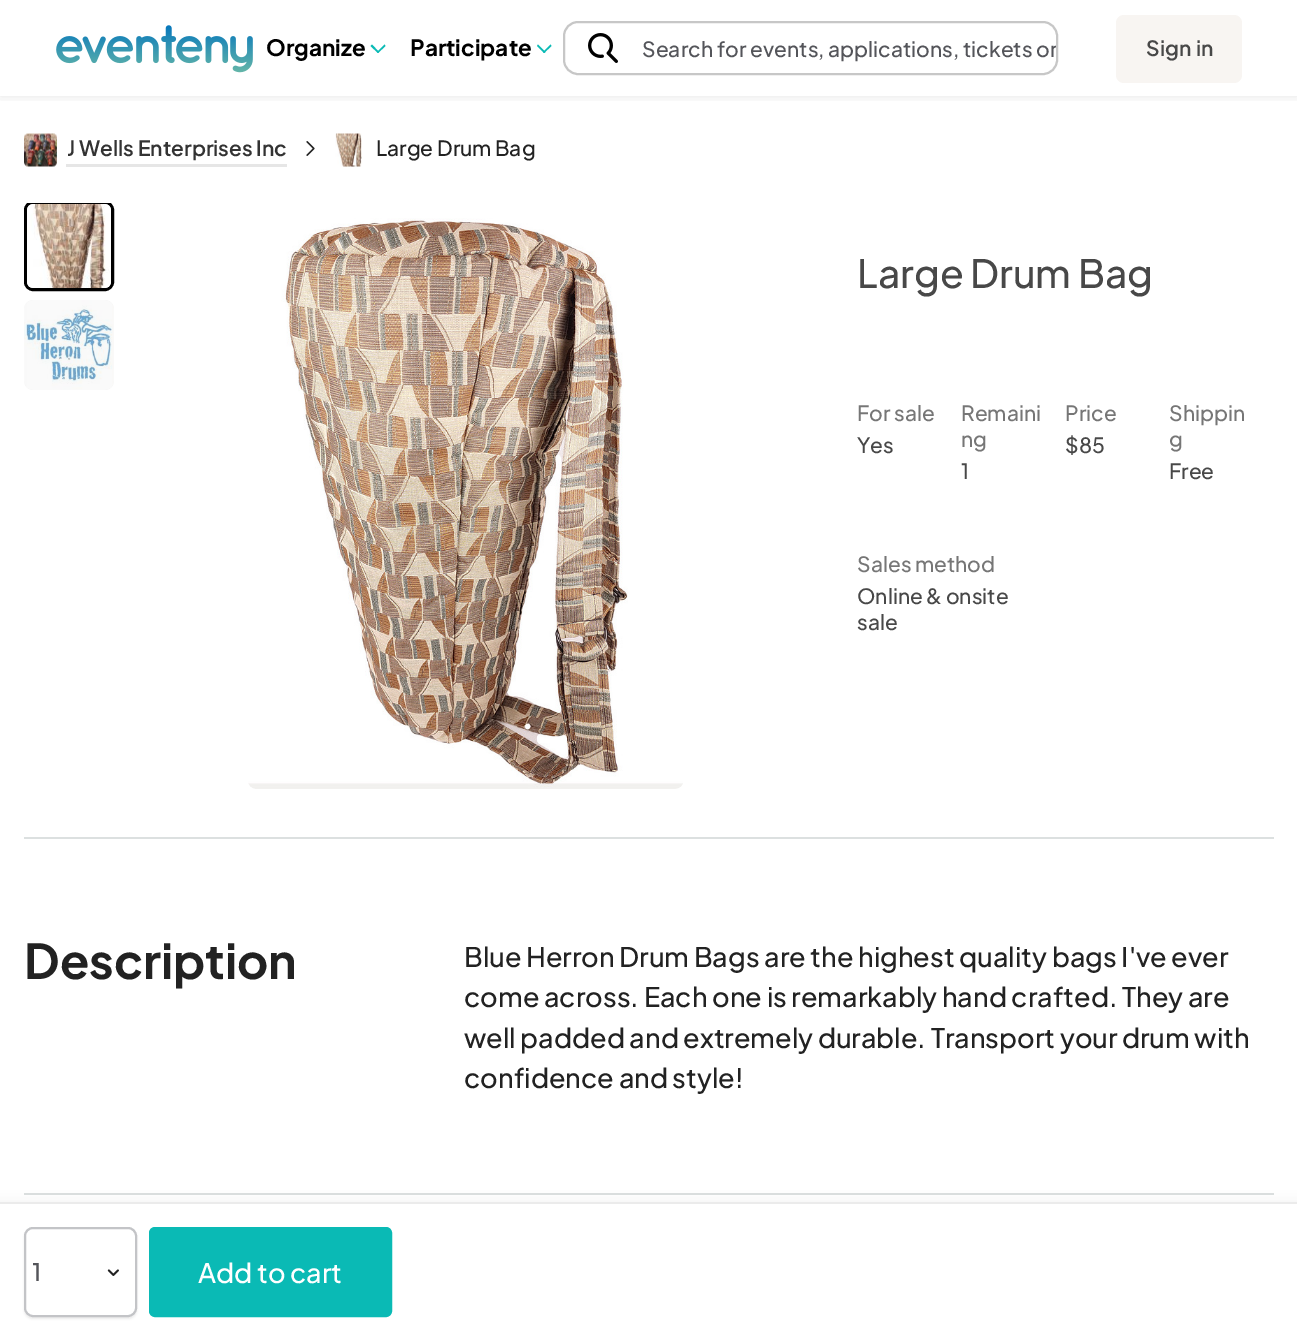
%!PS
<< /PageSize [1297 1340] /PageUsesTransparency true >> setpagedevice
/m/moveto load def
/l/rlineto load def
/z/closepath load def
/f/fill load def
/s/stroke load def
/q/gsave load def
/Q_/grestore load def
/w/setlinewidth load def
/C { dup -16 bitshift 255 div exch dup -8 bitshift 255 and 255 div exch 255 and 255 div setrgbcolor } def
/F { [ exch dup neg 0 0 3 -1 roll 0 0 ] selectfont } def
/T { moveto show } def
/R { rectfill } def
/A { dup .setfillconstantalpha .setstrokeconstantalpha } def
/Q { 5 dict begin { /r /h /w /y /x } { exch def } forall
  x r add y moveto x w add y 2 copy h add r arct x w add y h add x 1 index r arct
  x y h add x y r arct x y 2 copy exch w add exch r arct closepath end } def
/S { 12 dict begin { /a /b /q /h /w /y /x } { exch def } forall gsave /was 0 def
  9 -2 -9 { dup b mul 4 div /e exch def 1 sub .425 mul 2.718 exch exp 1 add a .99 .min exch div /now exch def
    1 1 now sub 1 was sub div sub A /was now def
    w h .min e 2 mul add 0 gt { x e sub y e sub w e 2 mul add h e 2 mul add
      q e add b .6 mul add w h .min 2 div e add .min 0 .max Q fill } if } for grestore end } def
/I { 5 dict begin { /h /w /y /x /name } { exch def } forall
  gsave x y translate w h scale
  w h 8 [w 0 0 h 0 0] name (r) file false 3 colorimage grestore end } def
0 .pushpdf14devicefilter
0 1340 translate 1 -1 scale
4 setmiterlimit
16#FFFFFF C
0 0 1297 1340 R
q
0 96 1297 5 rectclip
16#000000 C
0 0 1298 96 0 6 .1 S
Q_
(1.rgb) 56 25 197 48 I
/PlusJakartaSans-Bold 22.5 F
16#000000 C
(Organize) 266 56 T
16#0ABAB5 C
384.5 44.5 m 1 1.5 l -7.5 7 l -1 -1 l z f
372 44.5 m 7 7.5 l -1 1 l -7.5 -7 l z f
16#000000 C
(Participate) 410 56 T
16#0ABAB5 C
550.5 44.5 m 1 1.5 l -7.5 7 l -1 -1 l z f
538 44.5 m 7.5 7.5 l -1.5 1 l -7 -7 l z f
16#C7C7C7 C
2 w
564 22 493 52 14 Q s
(2.rgb) 588 33 30 30 I
/PlusJakartaSans-Medium 21 F
16#54555A C
(Search) 642 57 T
q
564 23 492 51 14 Q clip newpath
(for events, applications, tickets or) 717 57 T
Q_
16#F8F5F2 C
1116 15 126 68 8 Q f
/PlusJakartaSans-SemiBold 21 F
16#484848 C
1146 56 m .25 0 (Sign in) ashow
16#000000 C
3 w
25.5 202.5 87 87 7.5 Q s
16#FFFFFF C
27 201 84 2 R
(3.rgb) 24 133 33 34 I
16#333333 C
(J Wells Enterprises Inc) 67 156 T
16#E6E6E6 C
66 164 221 3 R
(4.rgb) 306 141 9 15 I
(5.rgb) 335 133 27 34 I
/PlusJakartaSans-Medium 21 F
16#222222 C
(Large Drum Bag) 376 156 T
(6.rgb) 27 204 84 84 I
16#F2F2F2 C
24 300 90 90 9 Q f
(7.rgb) 24 300 90 90 I
(8.rgb) 248 218 435 571 I
/PlusJakartaSans-Medium 39 F
16#484848 C
(Large Drum Bag) 857 288 T
/PlusJakartaSans-Medium 21 F
16#767676 C
(For sale) 857 421 T
16#484848 C
(Yes) 857 453 T
16#767676 C
(Remaini) 961 421 T
(ng) 961 447 T
16#484848 C
(1) 961 479 T
16#767676 C
(Price) 1065 421 T
16#484848 C
($85) 1065 453 T
16#767676 C
(Shippin) 1169 421 T
(g) 1169 447 T
16#484848 C
(Free) 1169 479 T
16#767676 C
(Sales method) 857 572 T
16#484848 C
(Online & onsite) 857 604 T
(sale) 857 630 T
16#DCE0E0 C
24 837 1250 2 R
/PlusJakartaSans-Bold 48 F
16#222222 C
(Description) 24 979 T
/PlusJakartaSans-Medium 27 F
(Blue Herron Drum Bags are the highest quality bags I've ever) 464 967 T
(come across. Each one is remarkably hand crafted. They are) 464 1007 T
(well padded and extremely durable. Transport your drum with) 464 1048 T
(confidence and style!) 464 1088 T
16#DCE0E0 C
24 1193 1250 2 R
16#000000 C
-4 1202 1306 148 0 7 .05 S
16#FFFFFF C
0 1204 1297 136 R
16#EBEBEB C
0 1202 1297 2 R
16#000000 C
24 1229 113 90 9 1 .07 S
16#FFFFFF C
24 1227 113 90 9 Q f
(9.rgb) 107 1269 12 7 I
16#C3C4C7 C
2 w
25 1228 111 88 8 Q s
/PlusJakartaSans-Medium 24 F
16#54555A C
(1) 32 1281 T
16#0ABAB5 C
150 1228 241 88 5 Q q f Q_
s
/PlusJakartaSans-Medium 27 F
16#FFFFFF C
(Add to cart) 198 1283 T
.poppdf14devicefilter showpage
